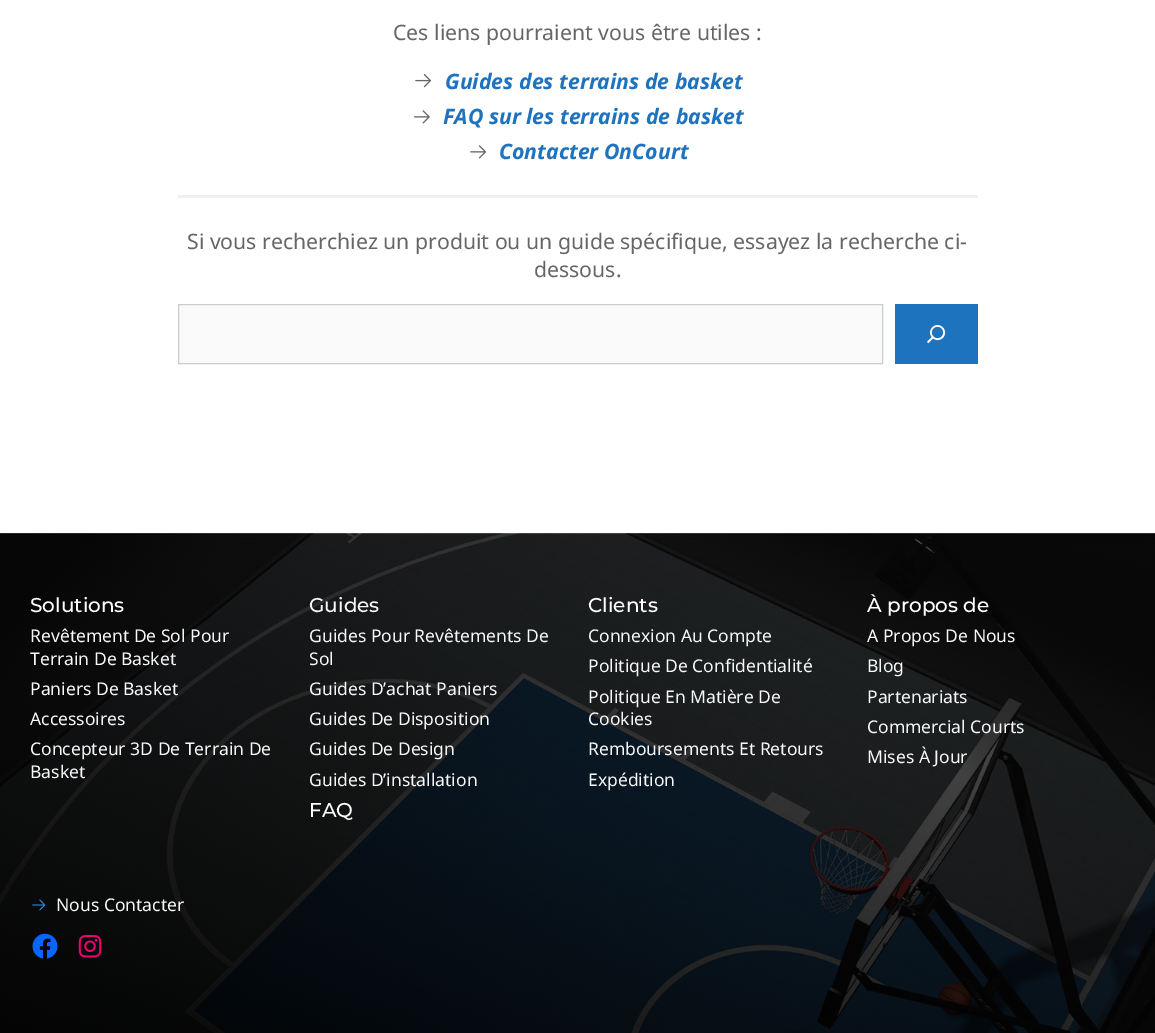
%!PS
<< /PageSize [1155 1033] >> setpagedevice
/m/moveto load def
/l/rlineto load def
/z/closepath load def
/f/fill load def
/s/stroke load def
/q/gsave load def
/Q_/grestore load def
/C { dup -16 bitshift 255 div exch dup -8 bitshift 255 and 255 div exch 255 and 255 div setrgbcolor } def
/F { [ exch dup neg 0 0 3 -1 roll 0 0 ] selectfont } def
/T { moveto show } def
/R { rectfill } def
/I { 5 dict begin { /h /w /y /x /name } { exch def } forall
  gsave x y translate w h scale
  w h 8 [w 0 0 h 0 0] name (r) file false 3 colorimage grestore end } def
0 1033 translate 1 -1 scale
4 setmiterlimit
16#FFFFFF C
0 0 1155 1033 R
/NotoSans-Regular 21.25 F
16#666666 C
(Ces liens pourraient vous être utiles :) 393 40 T
(1.rgb) 415 74 16 14 I
/NotoSans-BoldItalic 21.25 F
16#1E73BE C
(Guides des terrains de basket) 445 89 T
(2.rgb) 414 110 16 14 I
(FAQ sur les terrains de basket) 443 124 T
(3.rgb) 470 145 16 14 I
(Contacter OnCourt) 499 159 T
16#F0F0F0 C
178 195 800 3 R
/NotoSans-Regular 21.25 F
16#666666 C
(Si vous recherchiez un produit ou un guide spécifique, essayez la recherche ci-) 187 249 T
(dessous.) 534 277 T
16#FAFAFA C
178.5 304.5 m 704 0 l 0 59 l -704 0 l z q f Q_
16#CCCCCC C
s
16#1E73BE C
895 304 83 60 R
(4.rgb) 927 325 19 19 I
(5.rgb) 0 533 1155 500 I
/Montserrat-Medium 20 F
16#FFFFFF C
(Solutions) 30 612 T
/NotoSans-Regular 17.5 F
16#F7F8F9 C
(Revêtement De Sol Pour) 30 642 T
(Terrain De Basket) 30 665 T
(Paniers De Basket) 30 695 T
(Accessoires) 30 725 T
(Concepteur 3D De Terrain De) 30 755 T
(Basket) 30 778 T
/Montserrat-Medium 20 F
(Guides) 309 612 T
/NotoSans-Regular 17.5 F
(Guides Pour Revêtements De) 309 642 T
(Sol) 309 665 T
(Guides D’achat Paniers) 309 695 T
(Guides De Disposition) 309 725 T
(Guides De Design) 309 755 T
(Guides D’installation) 309 786 T
/Montserrat-Medium 20 F
16#FFFFFF C
(FAQ) 309 817 T
(Clients) 588 612 T
/NotoSans-Regular 17.5 F
16#F7F8F9 C
(Connexion Au Compte) 588 642 T
(Politique De Confidentialité) 588 672 T
(Politique En Matière De) 588 703 T
(Cookies) 588 725 T
(Remboursements Et Retours) 588 755 T
(Expédition) 588 786 T
/Montserrat-Medium 20 F
16#FFFFFF C
(À propos de) 867 612 T
/NotoSans-Regular 17.5 F
16#F7F8F9 C
(A Propos De Nous) 867 642 T
(Blog) 867 672 T
(Partenariats) 867 703 T
(Commercial Courts) 867 733 T
(Mises À Jour) 867 763 T
(6.rgb) 32 899 14 12 I
(Nous Contacter) 56 911 T
(7.rgb) 32 933 26 26 I
(8.rgb) 78 935 24 23 I
showpage
